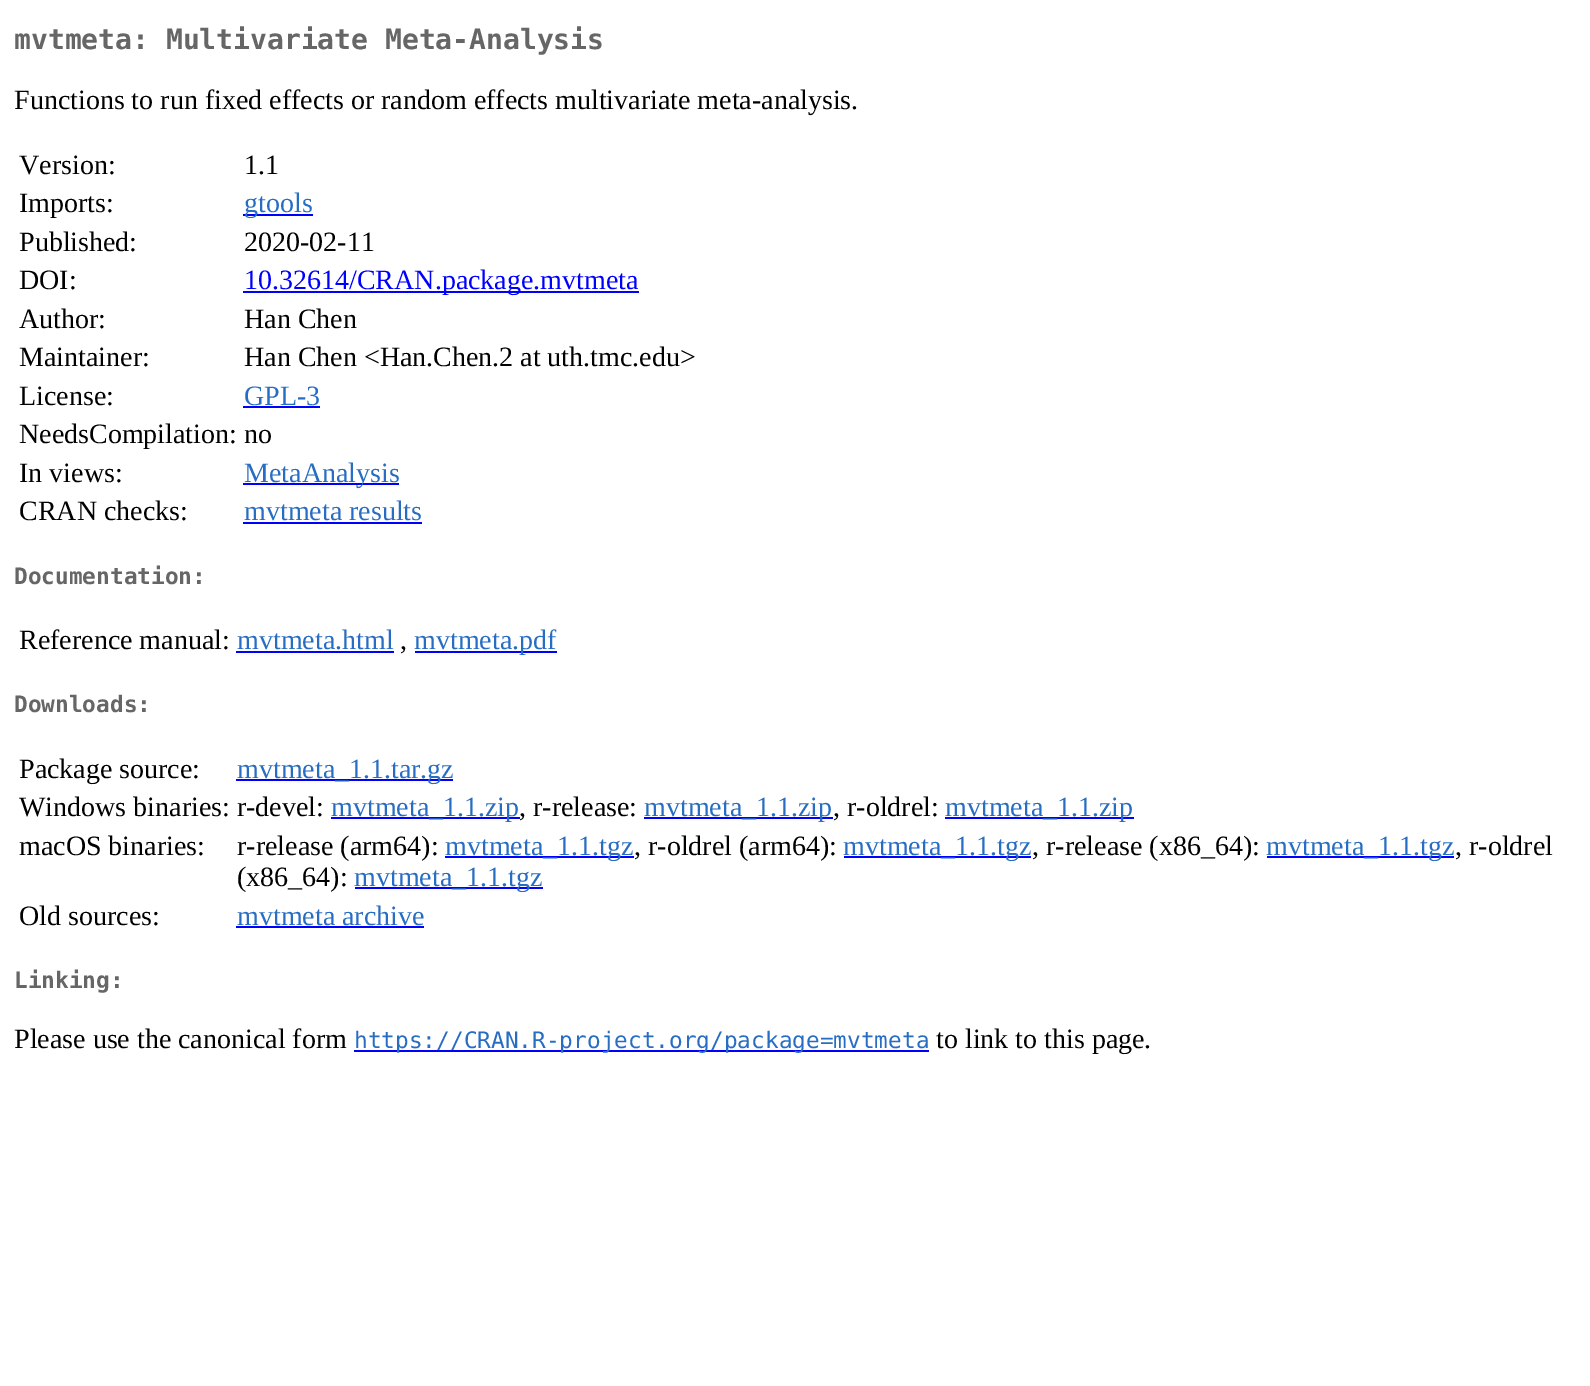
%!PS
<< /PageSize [1590 1386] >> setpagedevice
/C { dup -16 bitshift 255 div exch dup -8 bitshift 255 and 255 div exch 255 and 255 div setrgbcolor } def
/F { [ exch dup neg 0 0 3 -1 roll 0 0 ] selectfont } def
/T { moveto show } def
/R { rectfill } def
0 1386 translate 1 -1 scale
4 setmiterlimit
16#FFFFFF C
0 0 1590 1386 R
/DejaVuSansMono-Bold 28 F
16#666666 C
(mvtmeta: Multivariate Meta-Analysis) 14 49 T
/LiberationSerif-Regular 28 F
16#000000 C
(Functions to run fixed effects or random effects multivariate meta-analysis.) 14 109 T
(Version:) 19 174 T
(1.1) 244 174 T
(Imports:) 19 212 T
16#0000FF C
243 214 70 2 R
16#276DC3 C
(gtools) 244 212 T
16#000000 C
(Published:) 19 251 T
(2020-02-11) 244 251 T
(DOI:) 19 289 T
16#0000FF C
243 291 396 2 R
(10.32614/CRAN.package.mvtmeta) 244 289 T
16#000000 C
(Author:) 19 328 T
(Han Chen) 244 328 T
(Maintainer:) 19 366 T
(Han Chen <Han.Chen.2 at uth.tmc.edu>) 244 366 T
(License:) 19 405 T
16#276DC3 C
(GPL-3) 244 405 T
16#0000FF C
243 406 77 2 R
16#000000 C
(NeedsCompilation: no) 19 443 T
(In views:) 19 482 T
16#0000FF C
243 483 156 2 R
16#276DC3 C
(MetaAnalysis) 244 482 T
16#000000 C
(CRAN checks:) 19 520 T
16#276DC3 C
(mvtmeta results) 244 520 T
16#0000FF C
243 522 179 2 R
/DejaVuSansMono-Bold 22.75 F
16#666666 C
(Documentation:) 14 584 T
/LiberationSerif-Regular 28 F
16#000000 C
(Reference manual:) 19 649 T
16#276DC3 C
(mvtmeta.html) 237 649 T
16#0000FF C
236 651 158 2 R
16#000000 C
(,) 400 649 T
16#0000FF C
415 651 142 2 R
16#276DC3 C
(mvtmeta.pdf) 414 649 T
/DejaVuSansMono-Bold 22.75 F
16#666666 C
(Downloads:) 14 712 T
/LiberationSerif-Regular 28 F
16#000000 C
(Package source:) 19 778 T
16#0000FF C
236 779 217 2 R
16#276DC3 C
(mvtmeta_1.1.tar.gz) 237 778 T
16#000000 C
(Windows binaries: r-devel:) 19 816 T
16#0000FF C
331 817 189 2 R
16#276DC3 C
(mvtmeta_1.1.zip) 331 816 T
16#000000 C
(, r-release:) 519 816 T
16#0000FF C
644 817 189 2 R
16#276DC3 C
(mvtmeta_1.1.zip) 644 816 T
16#000000 C
(, r-oldrel:) 833 816 T
16#0000FF C
945 817 189 2 R
16#276DC3 C
(mvtmeta_1.1.zip) 945 816 T
16#000000 C
(macOS binaries:) 19 855 T
(r-release \(arm64\):) 237 855 T
16#0000FF C
445 856 189 2 R
16#276DC3 C
(mvtmeta_1.1.tgz) 445 855 T
16#000000 C
(, r-oldrel \(arm64\):) 634 855 T
16#0000FF C
844 856 187 2 R
16#276DC3 C
(mvtmeta_1.1.tgz) 843 855 T
16#000000 C
(, r-release \(x86_64\):) 1032 855 T
16#0000FF C
1267 856 187 2 R
16#276DC3 C
(mvtmeta_1.1.tgz) 1266 855 T
16#000000 C
(, r-oldrel) 1455 855 T
(\(x86_64\):) 237 886 T
16#0000FF C
355 887 188 2 R
16#276DC3 C
(mvtmeta_1.1.tgz) 354 886 T
16#000000 C
(Old sources:) 19 925 T
16#276DC3 C
(mvtmeta archive) 237 925 T
16#0000FF C
236 926 188 2 R
/DejaVuSansMono-Bold 22.75 F
16#666666 C
(Linking:) 14 988 T
/LiberationSerif-Regular 28 F
16#000000 C
(Please use the canonical form) 14 1048 T
16#0000FF C
354 1050 575 2 R
/DejaVuSansMono-Regular 22.75 F
16#276DC3 C
(https://CRAN.R-project.org/package=mvtmeta) 354 1048 T
/LiberationSerif-Regular 28 F
16#000000 C
(to link to this page.) 936 1048 T
showpage
